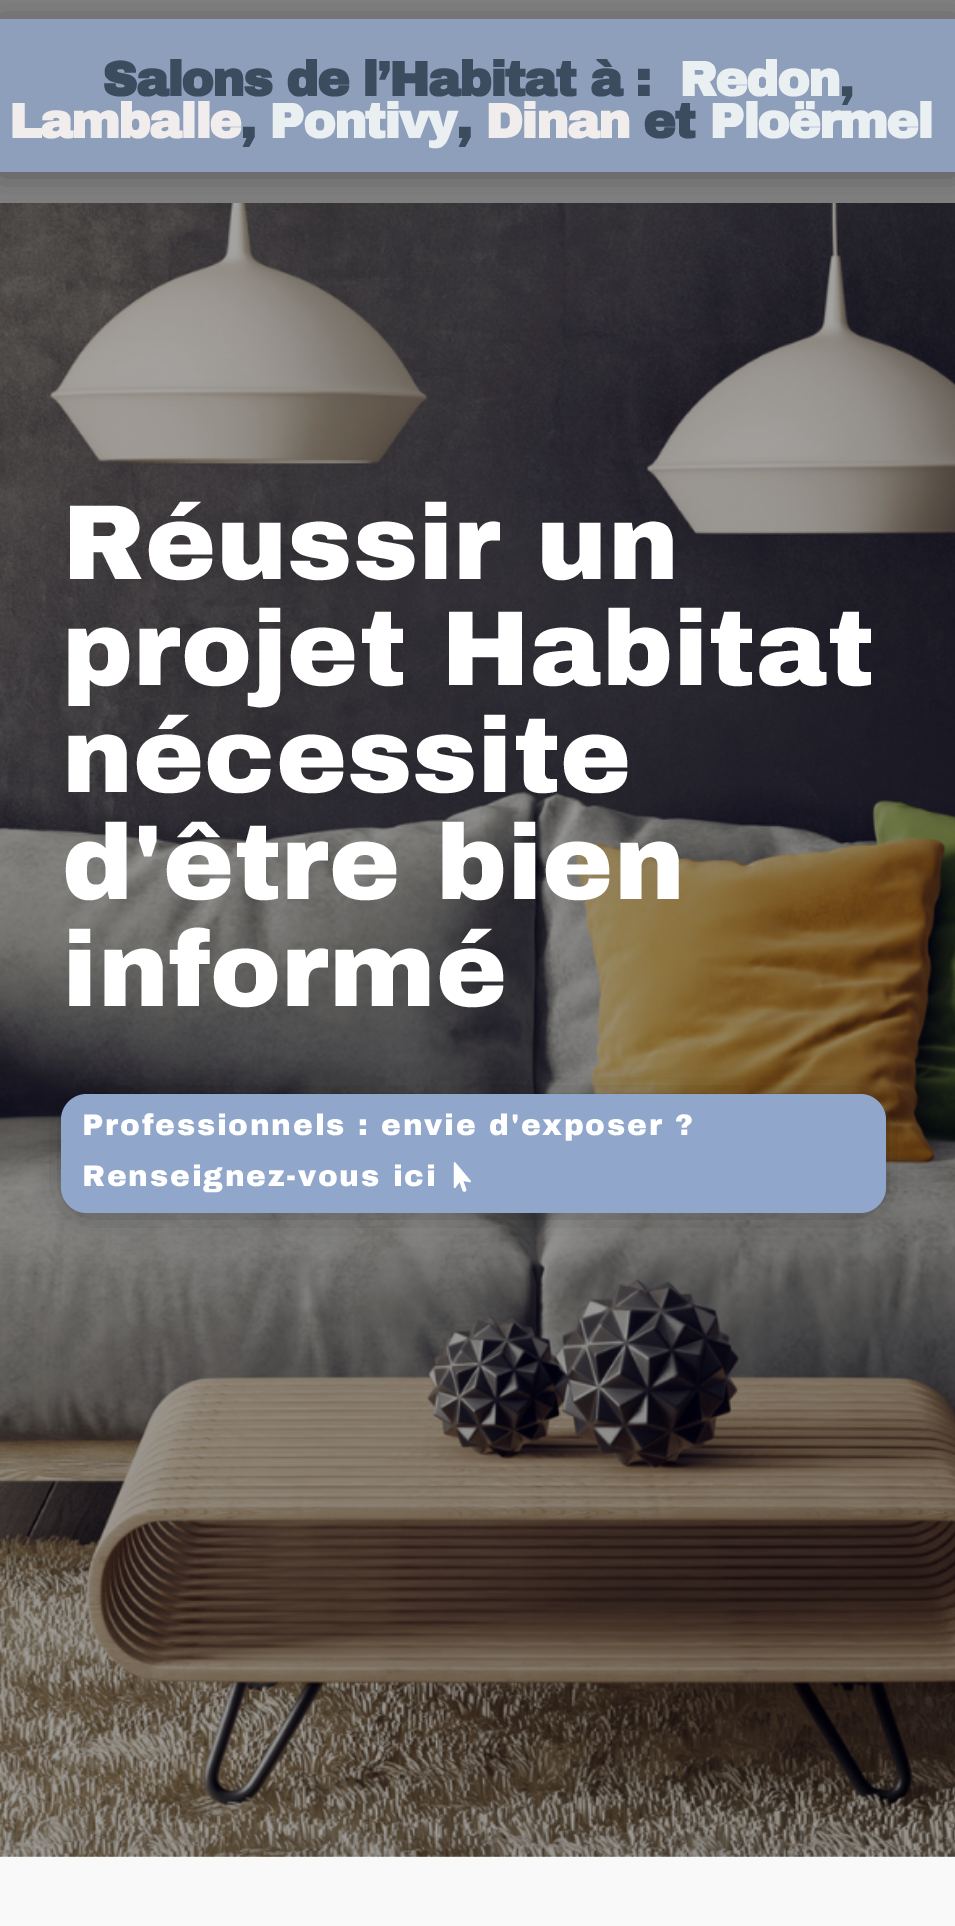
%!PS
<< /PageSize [955 1926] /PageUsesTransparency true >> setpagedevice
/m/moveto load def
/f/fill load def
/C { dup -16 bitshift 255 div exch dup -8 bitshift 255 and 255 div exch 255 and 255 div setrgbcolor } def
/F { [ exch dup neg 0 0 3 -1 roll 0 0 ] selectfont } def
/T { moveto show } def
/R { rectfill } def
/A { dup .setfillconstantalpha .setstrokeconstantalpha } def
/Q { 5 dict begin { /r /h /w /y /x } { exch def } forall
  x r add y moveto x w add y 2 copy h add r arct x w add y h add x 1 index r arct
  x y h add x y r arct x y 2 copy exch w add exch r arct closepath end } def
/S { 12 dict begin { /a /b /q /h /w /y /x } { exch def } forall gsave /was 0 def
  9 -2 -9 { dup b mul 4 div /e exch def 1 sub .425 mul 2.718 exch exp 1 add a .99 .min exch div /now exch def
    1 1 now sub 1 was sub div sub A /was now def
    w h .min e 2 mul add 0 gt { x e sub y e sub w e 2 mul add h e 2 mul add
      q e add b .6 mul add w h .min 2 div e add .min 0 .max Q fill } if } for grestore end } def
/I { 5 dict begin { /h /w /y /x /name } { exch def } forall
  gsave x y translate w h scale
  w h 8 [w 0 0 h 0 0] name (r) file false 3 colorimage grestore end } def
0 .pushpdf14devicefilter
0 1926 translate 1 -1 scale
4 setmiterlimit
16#FFFFFF C
0 0 955 1926 R
16#808080 C
0 0 955 203 R
(1.rgb) 0 203 955 1654 I
16#000000 C
0 23 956 152 0 16 .3 S
16#8E9FBC C
0 19 955 153 R
/ArchivoBlack-Bold 49 F
16#3B4C5E C
102 96 m -1.75 0 (Salons de l’Habitat à :) ashow
16#EAEFF2 C
679 96 m -1.75 0 (Redon) ashow
/ArchivoBlack-Regular 49 F
16#3B4C5E C
839 96 m -1.75 0 (,) ashow
/ArchivoBlack-Bold 49 F
16#F2EDED C
9 138 m -1.75 0 (Lamballe) ashow
16#3B4C5E C
240 138 m -1.75 0 (,) ashow
16#EAEFF2 C
269 138 m -1.75 0 (Pontivy) ashow
16#3B4C5E C
456 138 m -1.75 0 (,) ashow
16#F2EDED C
485 138 m -1.75 0 (Dinan) ashow
16#3B4C5E C
643 138 m -1.75 0 (et) ashow
16#EAEFF2 C
709 138 m -1.75 0 (Ploërmel) ashow
/ArchivoBlack-Regular 106.75 F
16#FFFFFF C
(Réussir un) 62 579 T
(projet Habitat) 62 685 T
(nécessite) 62 792 T
(d'être bien) 62 899 T
(informé) 62 1006 T
16#000000 C
61 1097 825 119 26 16 .3 S
16#90A6CA C
61 1094 825 119 26 Q f
/ArchivoBlack-Regular 29.75 F
16#FFFFFF C
82 1135 m 1.75 0 (Professionnels : envie d'exposer ?) ashow
82 1186 m 1.75 0 (Renseignez-vous ici) ashow
(2.rgb) 453 1162 18 30 I
0.03 A
16#3B4C5E C
0 1834 955 92 R
1 A
(3.rgb) 130 1834 725 23 I
.poppdf14devicefilter showpage
